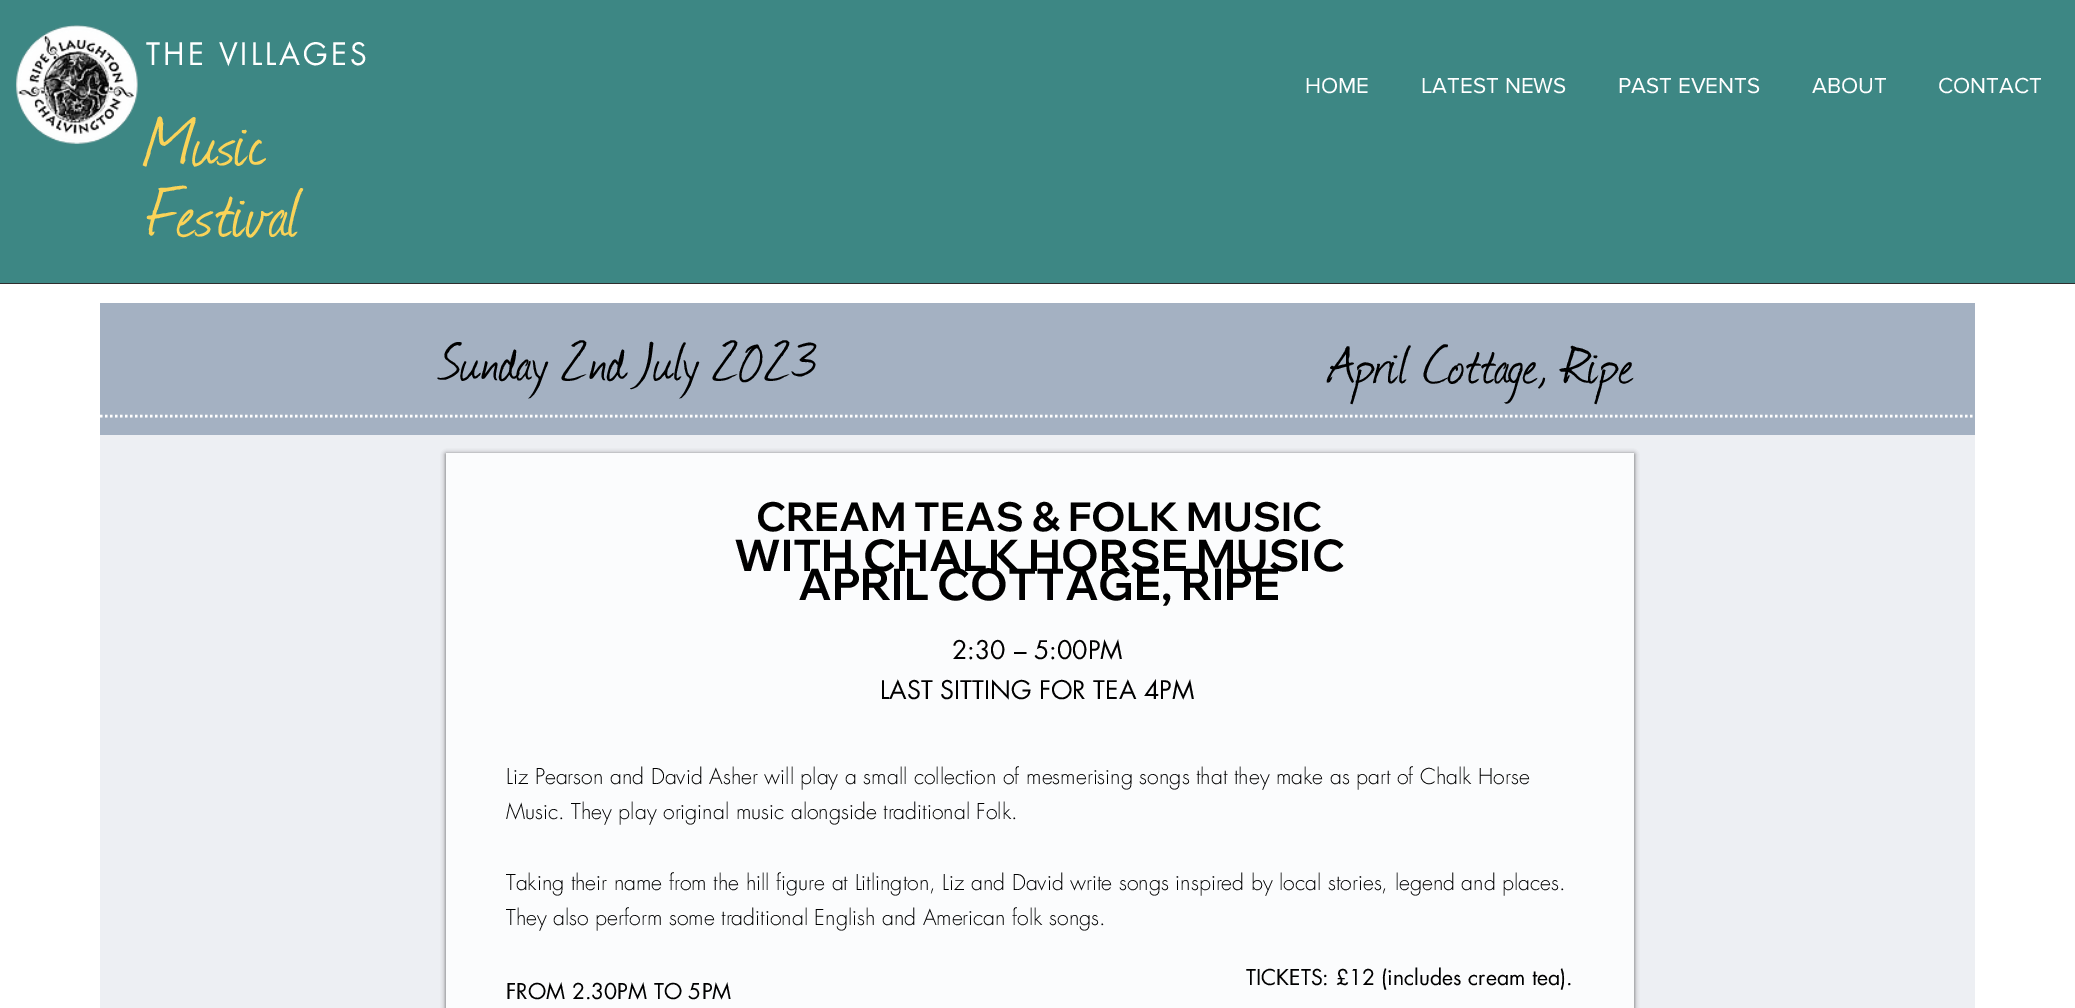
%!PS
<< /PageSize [2075 1008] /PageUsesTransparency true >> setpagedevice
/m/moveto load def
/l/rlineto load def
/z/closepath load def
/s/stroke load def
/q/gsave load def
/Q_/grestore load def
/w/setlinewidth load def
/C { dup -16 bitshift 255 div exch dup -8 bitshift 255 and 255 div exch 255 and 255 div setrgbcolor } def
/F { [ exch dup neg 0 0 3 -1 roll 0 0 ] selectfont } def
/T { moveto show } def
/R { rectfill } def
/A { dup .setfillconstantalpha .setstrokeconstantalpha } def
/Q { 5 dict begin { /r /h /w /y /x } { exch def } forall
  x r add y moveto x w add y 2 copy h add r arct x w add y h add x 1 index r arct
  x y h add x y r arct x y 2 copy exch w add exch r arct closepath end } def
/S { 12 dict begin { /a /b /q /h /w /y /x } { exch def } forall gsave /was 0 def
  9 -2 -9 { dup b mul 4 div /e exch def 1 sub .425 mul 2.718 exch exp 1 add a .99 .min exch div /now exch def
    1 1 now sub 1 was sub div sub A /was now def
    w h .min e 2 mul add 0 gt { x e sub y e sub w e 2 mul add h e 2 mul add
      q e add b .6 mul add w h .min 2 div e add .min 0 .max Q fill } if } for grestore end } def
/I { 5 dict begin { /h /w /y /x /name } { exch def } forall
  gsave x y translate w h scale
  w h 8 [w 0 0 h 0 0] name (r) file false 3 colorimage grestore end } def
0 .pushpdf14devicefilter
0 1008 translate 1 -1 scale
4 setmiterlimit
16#FFFFFF C
0 0 2075 1008 R
16#EDEFF3 C
100 435 1875 573 R
16#3D8784 C
0 0 2075 283 R
16#2F2E2E C
0 283 2075 1 R
(1.rgb) 16 25 122 119 I
/futura-Regular 30 F
16#FFFFFF C
146 65 m 3 0 (THE VILLAGES) ashow
/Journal-Regular 80 F
16#FAD358 C
(Music) 146 164 T
(Festival) 146 235 T
/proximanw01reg-Regular 22.5 F
16#FFFFFF C
(HOME) 1305 93 T
(LATEST NEWS) 1421 93 T
(PAST EVENTS) 1618 93 T
(ABOUT) 1812 93 T
(CONTACT) 1938 93 T
16#A4B1C2 C
100 303 1875 132 R
/Journal-Regular 62.5 F
16#000000 C
(Sunday 2nd July 2023) 440 379 T
(April Cottage, Ripe) 1328 382 T
16#FFFFFF C
2.5 w
[2.5 2.5] 0 setdash
100 416 m 1875 0 l s
q
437 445 m 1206 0 l 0 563 l -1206 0 l z 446 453 m 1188 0 l 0 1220 l -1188 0 l z eoclip newpath
16#000000 C
446 454 1188 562 0 2.5 .6 S
Q_
0.8 A
446 453 1188 555 R
/WixMadeforDisplay-Bold 40 F
1 A
16#000000 C
(CREAM TEAS & FOLK MUSIC) 756 531 T
/WixMadeforDisplay-Bold 43.75 F
(WITH CHALK HORSE MUSIC) 734 571 T
(APRIL COTTAGE, RIPE) 798 600 T
/futura-Regular 25 F
(2:30 – 5:00PM) 952 659 T
(LAST SITTING FOR TEA 4PM) 880 699 T
/futura-Light 21.25 F
(Liz Pearson and David Asher will play a small collection of mesmerising songs that they make as part of Chalk Horse) 506 784 T
(Music. They play original music alongside traditional Folk.) 506 819 T
(Taking their name from the hill figure at Litlington, Liz and David write songs inspired by local stories, legend and places.) 506 890 T
(They also perform some traditional English and American folk songs.) 506 925 T
/futura-Regular 21.25 F
(FROM 2.30PM TO 5PM) 506 999 T
(TICKETS: £12 \(includes cream tea\).) 1246 985 T
.poppdf14devicefilter showpage
